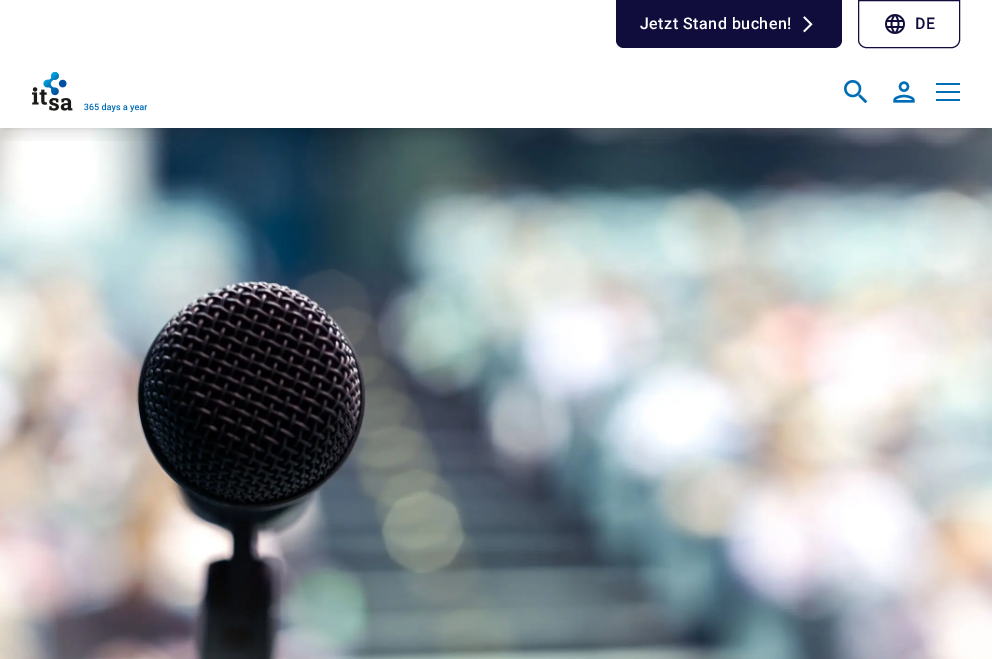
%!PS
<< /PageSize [992 659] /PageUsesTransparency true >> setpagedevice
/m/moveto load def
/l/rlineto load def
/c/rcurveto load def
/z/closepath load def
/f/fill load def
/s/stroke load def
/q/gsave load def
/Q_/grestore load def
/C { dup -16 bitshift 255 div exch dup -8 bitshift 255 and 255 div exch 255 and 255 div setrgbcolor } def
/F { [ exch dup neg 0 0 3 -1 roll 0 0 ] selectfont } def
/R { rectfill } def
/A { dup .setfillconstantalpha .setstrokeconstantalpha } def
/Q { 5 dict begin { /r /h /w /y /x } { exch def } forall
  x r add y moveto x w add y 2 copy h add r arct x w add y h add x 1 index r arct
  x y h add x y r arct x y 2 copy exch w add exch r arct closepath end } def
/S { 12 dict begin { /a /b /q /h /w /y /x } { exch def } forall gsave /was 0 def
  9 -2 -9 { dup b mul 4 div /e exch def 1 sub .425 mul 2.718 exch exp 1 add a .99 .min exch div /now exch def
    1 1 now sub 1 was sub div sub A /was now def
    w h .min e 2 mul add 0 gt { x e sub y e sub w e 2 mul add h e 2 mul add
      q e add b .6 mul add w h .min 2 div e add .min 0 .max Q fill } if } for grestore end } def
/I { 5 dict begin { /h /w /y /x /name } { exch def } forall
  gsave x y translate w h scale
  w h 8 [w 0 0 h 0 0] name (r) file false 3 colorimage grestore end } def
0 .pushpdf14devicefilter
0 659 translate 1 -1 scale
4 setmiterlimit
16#FFFFFF C
0 0 992 659 R
(6.rgb) 0 128 992 531 I
q
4 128 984 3 rectclip
16#000000 C
4 8 984 120 0 3 .1 S
Q_
q
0 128 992 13 rectclip
16#000000 C
3 13 986 122 0 7.5 .1 S
Q_
16#100D3D C
616 0 m 226 0 l 0 40 l 0 4.5 -3.5 8 -8 8 c -210 0 l -4.5 0 -8 -3.5 -8 -8 c z f
/Roboto-Medium 16 F
16#FFFFFF C
640 29 m .5 0 (Jetzt Stand buchen!) ashow
(1.rgb) 803 16 10 17 I
16#100D3D C
858.5 .5 m 101 0 l 0 39.5 l 0 4 -3.5 7.5 -7.5 7.5 c -86 0 l -4 0 -7.5 -3.5 -7.5 -7.5 c z s
(2.rgb) 885 14 20 20 I
915 29 m .5 0 (DE) ashow
(3.rgb) 32 72 115 40 I
(4.rgb) 844 80 24 24 I
(5.rgb) 893 81 22 22 I
16#006EB7 C
936 83 24 2 R
936 91 24 2 R
936 99 24 2 R
.poppdf14devicefilter showpage
